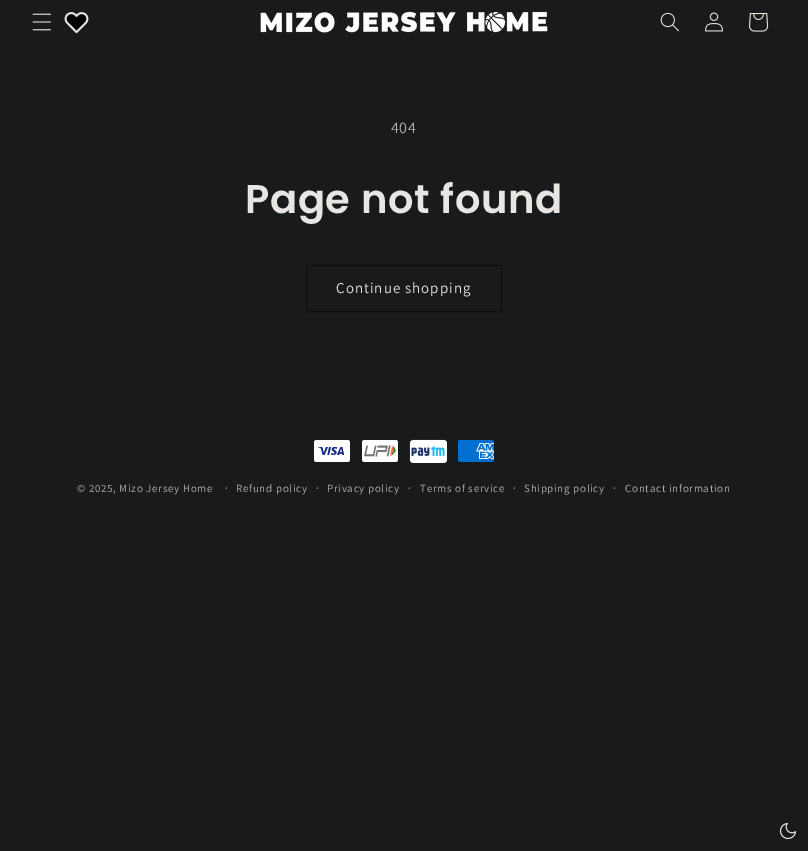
%!PS
<< /PageSize [808 851] >> setpagedevice
/m/moveto load def
/C { dup -16 bitshift 255 div exch dup -8 bitshift 255 and 255 div exch 255 and 255 div setrgbcolor } def
/F { [ exch dup neg 0 0 3 -1 roll 0 0 ] selectfont } def
/R { rectfill } def
/I { 5 dict begin { /h /w /y /x /name } { exch def } forall
  gsave x y translate w h scale
  w h 8 [w 0 0 h 0 0] name (r) file false 3 colorimage grestore end } def
0 851 translate 1 -1 scale
4 setmiterlimit
16#181A1B C
0 0 808 851 R
(1.rgb) 32 13 20 18 I
(2.rgb) 64 12 25 22 I
(3.rgb) 260 11 288 22 I
(4.rgb) 660 12 19 20 I
(5.rgb) 705 12 18 20 I
(6.rgb) 749 13 20 19 I
/Assistant-Regular 16 F
16#B4B3B1 C
391 133 m .6 0 (404) ashow
/Poppins-SemiBold 40 F
16#E8E6E3 C
245 213 m .6 0 (Page not found) ashow
16#0E0F0F C
306.5 265.5 195 46 rectstroke
/Assistant-Regular 15 F
16#E8E6E3 C
336 293 m 1 0 (Continue shopping) ashow
(7.rgb) 314 440 36 22 I
(8.rgb) 362 440 36 22 I
(9.rgb) 409 439 38 24 I
(10.rgb) 458 440 36 22 I
/Assistant-Regular 11 F
16#B4B3B1 C
77 492 m .7 0 (© 2025, Mizo Jersey Home) ashow
/Assistant-Regular 12 F
225 492 m .7 0 (·) ashow
/Assistant-Regular 11 F
236 492 m .7 0 (Refund policy) ashow
/Assistant-Regular 12 F
316 492 m .7 0 (·) ashow
/Assistant-Regular 11 F
327 492 m .7 0 (Privacy policy) ashow
/Assistant-Regular 12 F
408 492 m .7 0 (·) ashow
/Assistant-Regular 11 F
420 492 m .7 0 (Terms of service) ashow
/Assistant-Regular 12 F
513 492 m .7 0 (·) ashow
/Assistant-Regular 11 F
524 492 m .7 0 (Shipping policy) ashow
/Assistant-Regular 12 F
613 492 m .7 0 (·) ashow
/Assistant-Regular 11 F
625 492 m .7 0 (Contact information) ashow
(11.rgb) 779 822 18 18 I
showpage
